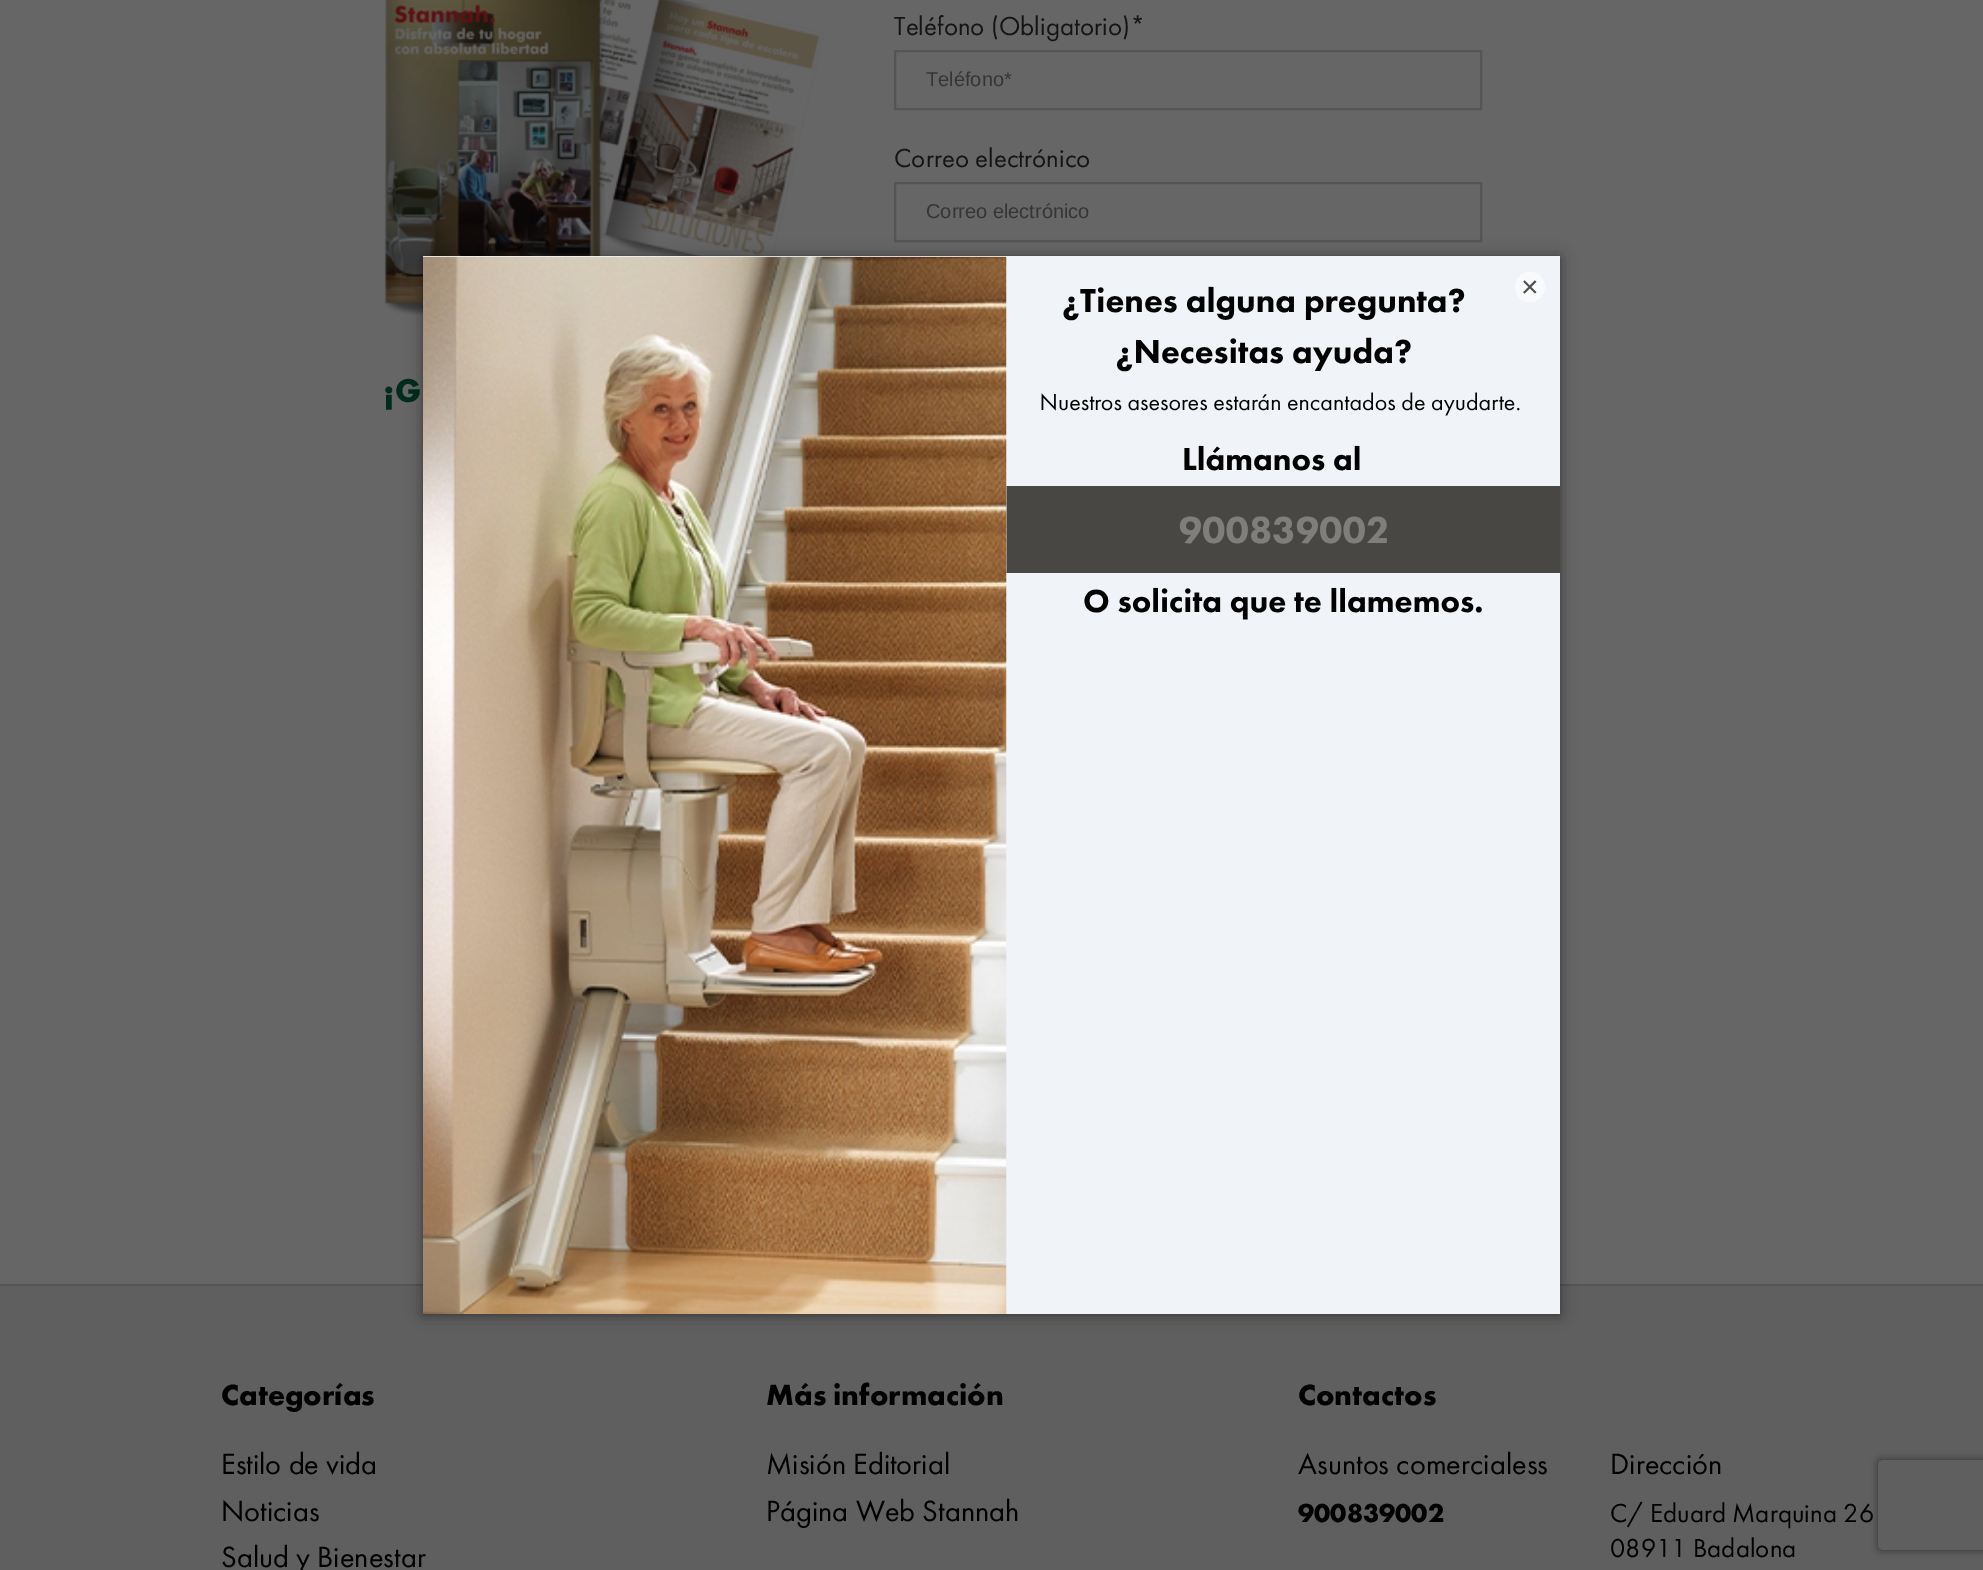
%!PS
<< /PageSize [1983 1570] /PageUsesTransparency true >> setpagedevice
/m/moveto load def
/l/rlineto load def
/c/rcurveto load def
/z/closepath load def
/f/fill load def
/q/gsave load def
/Q_/grestore load def
/w/setlinewidth load def
/C { dup -16 bitshift 255 div exch dup -8 bitshift 255 and 255 div exch 255 and 255 div setrgbcolor } def
/F { [ exch dup neg 0 0 3 -1 roll 0 0 ] selectfont } def
/T { moveto show } def
/R { rectfill } def
/A { dup .setfillconstantalpha .setstrokeconstantalpha } def
/O { newpath 0 360 arc closepath } def
/Q { 5 dict begin { /r /h /w /y /x } { exch def } forall
  x r add y moveto x w add y 2 copy h add r arct x w add y h add x 1 index r arct
  x y h add x y r arct x y 2 copy exch w add exch r arct closepath end } def
/S { 12 dict begin { /a /b /q /h /w /y /x } { exch def } forall gsave /was 0 def
  9 -2 -9 { dup b mul 4 div /e exch def 1 sub .425 mul 2.718 exch exp 1 add a .99 .min exch div /now exch def
    1 1 now sub 1 was sub div sub A /was now def
    w h .min e 2 mul add 0 gt { x e sub y e sub w e 2 mul add h e 2 mul add
      q e add b .6 mul add w h .min 2 div e add .min 0 .max Q fill } if } for grestore end } def
/I { 5 dict begin { /h /w /y /x /name } { exch def } forall
  gsave x y translate w h scale
  w h 8 [w 0 0 h 0 0] name (r) file false 3 colorimage grestore end } def
0 .pushpdf14devicefilter
0 1570 translate 1 -1 scale
4 setmiterlimit
16#666666 C
0 0 1983 1570 R
/FuturaPT-Regular 27 F
16#141414 C
(Teléfono \(Obligatorio\)*) 894 35 T
16#555555 C
2 w
895 51 586 58 rectstroke
/LiberationSans-Regular 20 F
16#353535 C
(Teléfono*) 926 86 T
/FuturaPT-Regular 27 F
16#141414 C
(Correo electrónico) 894 167 T
16#555555 C
895 183 586 58 rectstroke
/LiberationSans-Regular 20 F
16#353535 C
(Correo electrónico) 926 218 T
(1.rgb) 384 0 440 316 I
/FuturaPT-Bold 34 F
16#002C1E C
(¡G) 383 402 T
16#5F5F5F C
0 1286 1983 284 R
16#555555 C
0 1284 1983 2 R
16#000000 C
423 257 1137 1057 0 9 .3 S
423 258 1137 1058 0 4 .2 S
(2.rgb) 423 256 1137 1058 I
16#F9FAFC C
1530 287 15 O f
/LiberationSans-Regular 30 F
16#525151 C
(×) 1521 297 T
/FuturaPT-Bold 30.4 F
16#000000 C
(Categorías) 221 1405 T
/FuturaPT-Regular 30.4 F
(Estilo de vida) 221 1474 T
(Noticias) 221 1521 T
(Salud y Bienestar) 221 1567 T
/FuturaPT-Bold 30.4 F
(Más información) 766 1405 T
/FuturaPT-Regular 30.4 F
(Misión Editorial) 766 1474 T
(Página Web Stannah) 766 1521 T
/FuturaPT-Bold 30.4 F
(Contactos) 1298 1405 T
/FuturaPT-Regular 30.4 F
(Asuntos comercialess) 1298 1474 T
/FuturaPT-Bold 27 F
(900839002) 1298 1522 T
/FuturaPT-Regular 30.4 F
(Dirección) 1610 1474 T
/FuturaPT-Regular 27 F
(C/ Eduard Marquina 26) 1610 1522 T
(08911 Badalona) 1610 1557 T
q
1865 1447 m 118 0 l 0 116 l -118 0 l z 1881 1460 m 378 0 l 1.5 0 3 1.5 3 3 c 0 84 l 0 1.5 -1.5 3 -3 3 c -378 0 l -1.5 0 -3 -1.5 -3 -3 c 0 -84 l 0 -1.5 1.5 -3 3 -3 c z eoclip newpath
16#333333 C
1878 1460 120 90 3 4 1 S
Q_
.poppdf14devicefilter showpage
